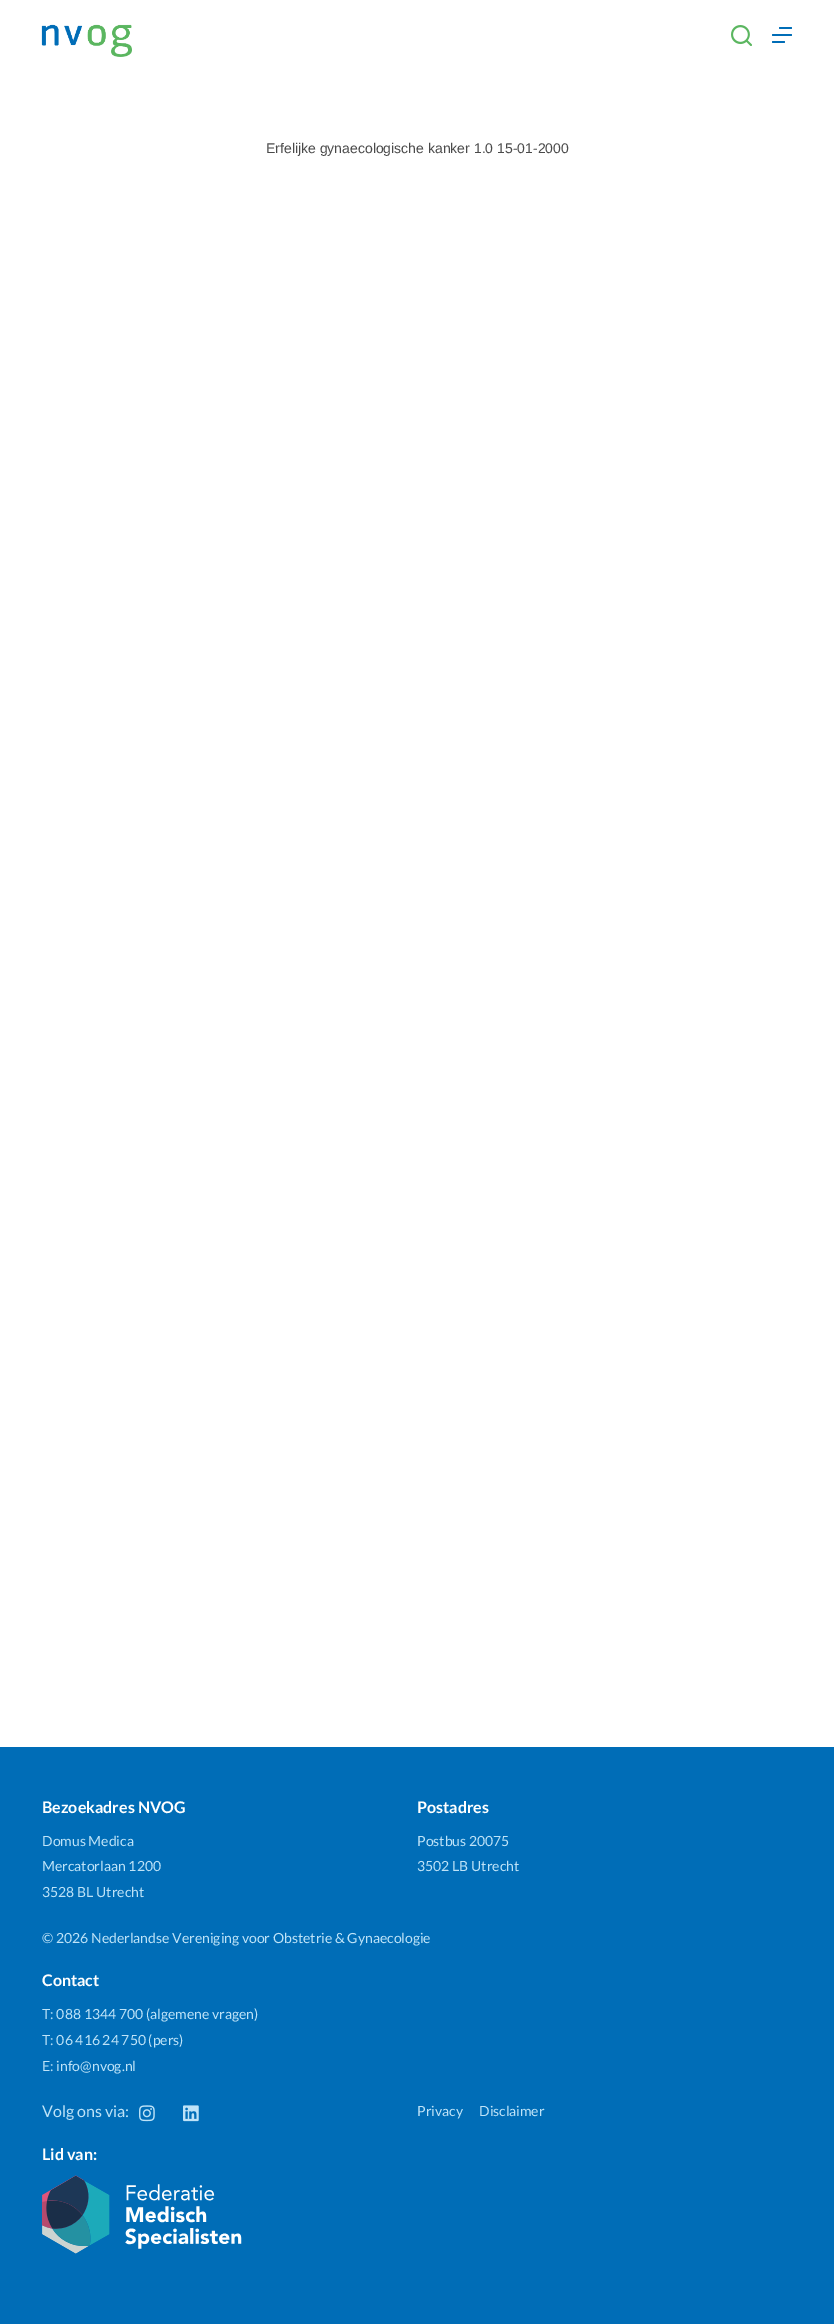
%!PS
<< /PageSize [834 2324] >> setpagedevice
/f/fill load def
/C { dup -16 bitshift 255 div exch dup -8 bitshift 255 and 255 div exch 255 and 255 div setrgbcolor } def
/F { [ exch dup neg 0 0 3 -1 roll 0 0 ] selectfont } def
/T { moveto show } def
/R { rectfill } def
/Q { 5 dict begin { /r /h /w /y /x } { exch def } forall
  x r add y moveto x w add y 2 copy h add r arct x w add y h add x 1 index r arct
  x y h add x y r arct x y 2 copy exch w add exch r arct closepath end } def
/I { 5 dict begin { /h /w /y /x /name } { exch def } forall
  gsave x y translate w h scale
  w h 8 [w 0 0 h 0 0] name (r) file false 3 colorimage grestore end } def
0 2324 translate 1 -1 scale
4 setmiterlimit
16#FFFFFF C
0 0 834 2324 R
(1.rgb) 41 24 91 33 I
(2.rgb) 731 25 21 21 I
16#006DB7 C
779 27 13 2 1 Q f
772 34 20 2 1 Q f
772 41 13 2 1 Q f
/LiberationSans-Regular 14 F
16#4A4A4A C
(Erfelijke gynaecologische kanker 1.0 15-01-2000) 266 153 T
16#006DB7 C
0 1747 834 577 R
/Lato-Bold 16 F
16#FFFFFF C
(Bezoekadres NVOG) 42 1813 T
/Lato-Regular 14 F
16#BEE3F8 C
(Domus Medica) 42 1846 T
(Mercatorlaan 1200) 42 1871 T
(3528 BL Utrecht) 42 1897 T
/Lato-Bold 16 F
16#FFFFFF C
(Postadres) 417 1813 T
/Lato-Regular 14 F
16#BEE3F8 C
(Postbus 20075) 417 1846 T
(3502 LB Utrecht) 417 1871 T
(© 2026 Nederlandse Vereniging voor Obstetrie & Gynaecologie) 42 1943 T
/Lato-Bold 16 F
16#FFFFFF C
(Contact) 42 1986 T
/Lato-Regular 14 F
16#BEE3F8 C
(T: 088 1344 700 \(algemene vragen\)) 42 2019 T
(T: 06 416 24 750 \(pers\)) 42 2045 T
(E: info@nvog.nl) 42 2071 T
/Lato-Regular 16 F
(Volg ons via:) 42 2117 T
(3.rgb) 139 2105 16 17 I
(4.rgb) 183 2105 16 17 I
/Lato-Regular 14 F
(Privacy) 417 2116 T
(Disclaimer) 479 2116 T
/Lato-Bold 16 F
16#FFFFFF C
(Lid van:) 42 2160 T
(5.rgb) 42 2175 200 79 I
showpage
